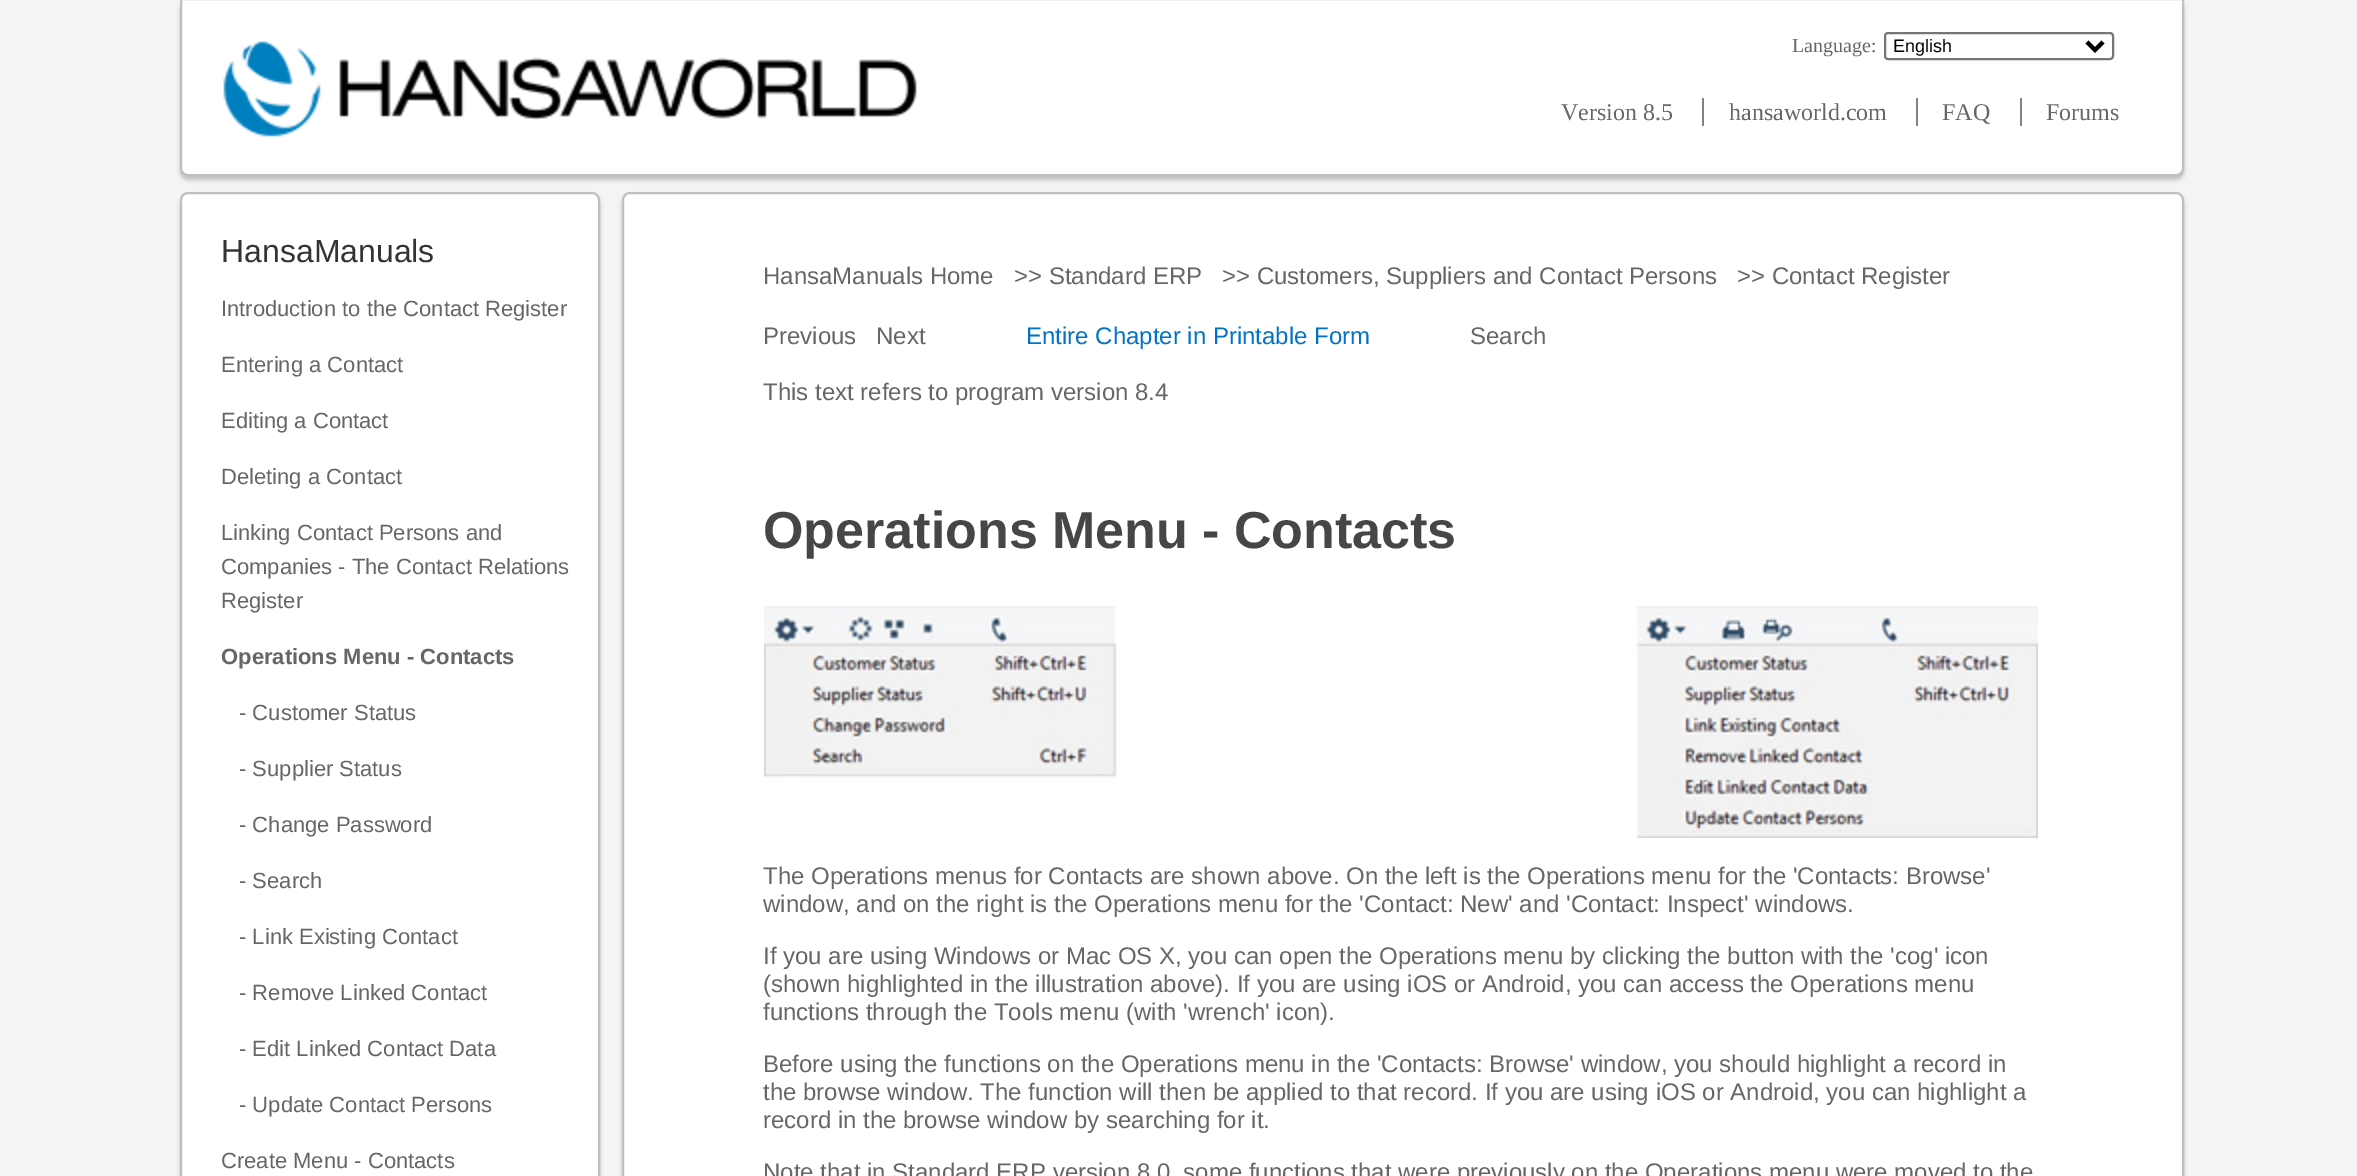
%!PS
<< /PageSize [2357 1176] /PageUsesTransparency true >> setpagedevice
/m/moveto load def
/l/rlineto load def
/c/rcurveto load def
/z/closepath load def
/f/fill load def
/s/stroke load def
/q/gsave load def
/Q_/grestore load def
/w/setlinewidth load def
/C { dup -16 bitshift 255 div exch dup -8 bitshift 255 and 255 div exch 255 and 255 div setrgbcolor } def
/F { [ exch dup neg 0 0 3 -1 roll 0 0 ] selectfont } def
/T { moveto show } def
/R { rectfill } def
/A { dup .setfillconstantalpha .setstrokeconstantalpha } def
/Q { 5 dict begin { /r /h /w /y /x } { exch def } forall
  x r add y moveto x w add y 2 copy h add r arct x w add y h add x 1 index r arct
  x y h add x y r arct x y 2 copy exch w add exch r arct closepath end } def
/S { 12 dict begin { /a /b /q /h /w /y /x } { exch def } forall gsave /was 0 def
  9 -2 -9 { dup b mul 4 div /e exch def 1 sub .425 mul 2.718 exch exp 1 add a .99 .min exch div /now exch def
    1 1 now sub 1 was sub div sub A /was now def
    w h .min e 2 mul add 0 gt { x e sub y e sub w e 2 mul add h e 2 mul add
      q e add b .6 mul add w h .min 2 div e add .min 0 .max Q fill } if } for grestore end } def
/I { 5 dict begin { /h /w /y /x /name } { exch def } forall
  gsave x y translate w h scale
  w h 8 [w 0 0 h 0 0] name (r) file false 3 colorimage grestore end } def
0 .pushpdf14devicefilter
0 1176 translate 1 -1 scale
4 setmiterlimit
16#F5F4F4 C
0 0 2357 1176 R
16#BFBFBF C
180 2 2004 178 8 2 1 S
16#FFFFFF C
181 -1 m 2002 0 l 0 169 l 0 4 -3 7 -7 7 c -1988 0 l -4 0 -7 -3 -7 -7 c z q f Q_
16#C2C0BD C
2 w
s
(1.rgb) 223 41 694 96 I
/LiberationSerif-Regular 20 F
16#666666 C
(Language:) 1792 52 T
16#767676 C
1885 33 228 26 3 Q s
16#000000 C
4 w
2087 42 m 8 8 l 8 -8 l s
/LiberationSans-Regular 18 F
(English) 1893 52 T
/LiberationSerif-Regular 24 F
16#666666 C
(Version 8.5) 1561 120 T
(hansaworld.com) 1729 120 T
16#828282 C
1702 98 2 28 R
16#666666 C
(FAQ) 1942 120 T
16#828282 C
1916 98 2 28 R
16#666666 C
(Forums) 2046 120 T
16#828282 C
2020 98 2 28 R
16#BFBFBF C
180 196 420 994 8 2 1 S
16#FFFFFF C
181 193 418 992 7 Q q f Q_
16#C2C0BD C
2 w
s
/LiberationSans-Regular 32 F
16#333333 C
(HansaManuals) 221 262 T
/LiberationSans-Regular 22 F
16#666666 C
(Introduction to the Contact Register) 221 316 T
(Entering a Contact) 221 372 T
(Editing a Contact) 221 428 T
(Deleting a Contact) 221 484 T
(Linking Contact Persons and) 221 540 T
(Companies - The Contact Relations) 221 574 T
(Register) 221 608 T
/LiberationSans-Bold 22 F
(Operations Menu - Contacts) 221 664 T
/LiberationSans-Regular 22 F
(- Customer Status) 239 720 T
(- Supplier Status) 239 776 T
(- Change Password) 239 832 T
(- Search) 239 888 T
(- Link Existing Contact) 239 944 T
(- Remove Linked Contact) 239 1000 T
(- Edit Linked Contact Data) 239 1056 T
(- Update Contact Persons) 239 1112 T
(Create Menu - Contacts) 221 1168 T
16#BFBFBF C
622 196 1562 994 8 2 1 S
16#FFFFFF C
623 193 1560 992 7 Q q f Q_
16#C2C0BD C
s
/LiberationSans-Regular 24 F
16#666666 C
(HansaManuals Home) 763 284 T
(>> Standard ERP) 1014 284 T
(>> Customers, Suppliers and Contact Persons) 1222 284 T
(>> Contact Register) 1737 284 T
(Previous) 763 344 T
(Next) 876 344 T
16#0072C7 C
(Entire Chapter in Printable Form) 1026 344 T
16#666666 C
(Search) 1470 344 T
(This text refers to program version 8.4) 763 400 T
/LiberationSans-Bold 52 F
16#464646 C
(Operations Menu - Contacts) 763 548 T
(2.rgb) 764 606 1274 232 I
/LiberationSans-Regular 24 F
16#666666 C
(The Operations menus for Contacts are shown above. On the left is the Operations menu for the 'Contacts: Browse') 763 884 T
(window, and on the right is the Operations menu for the 'Contact: New' and 'Contact: Inspect' windows.) 763 912 T
(If you are using Windows or Mac OS X, you can open the Operations menu by clicking the button with the 'cog' icon) 763 964 T
(\(shown highlighted in the illustration above\). If you are using iOS or Android, you can access the Operations menu) 763 992 T
(functions through the Tools menu \(with 'wrench' icon\).) 763 1020 T
(Before using the functions on the Operations menu in the 'Contacts: Browse' window, you should highlight a record in) 763 1072 T
(the browse window. The function will then be applied to that record. If you are using iOS or Android, you can highlight a) 763 1100 T
(record in the browse window by searching for it.) 763 1128 T
(Note that in Standard ERP version 8.0, some functions that were previously on the Operations menu were moved to the) 763 1180 T
.poppdf14devicefilter showpage
